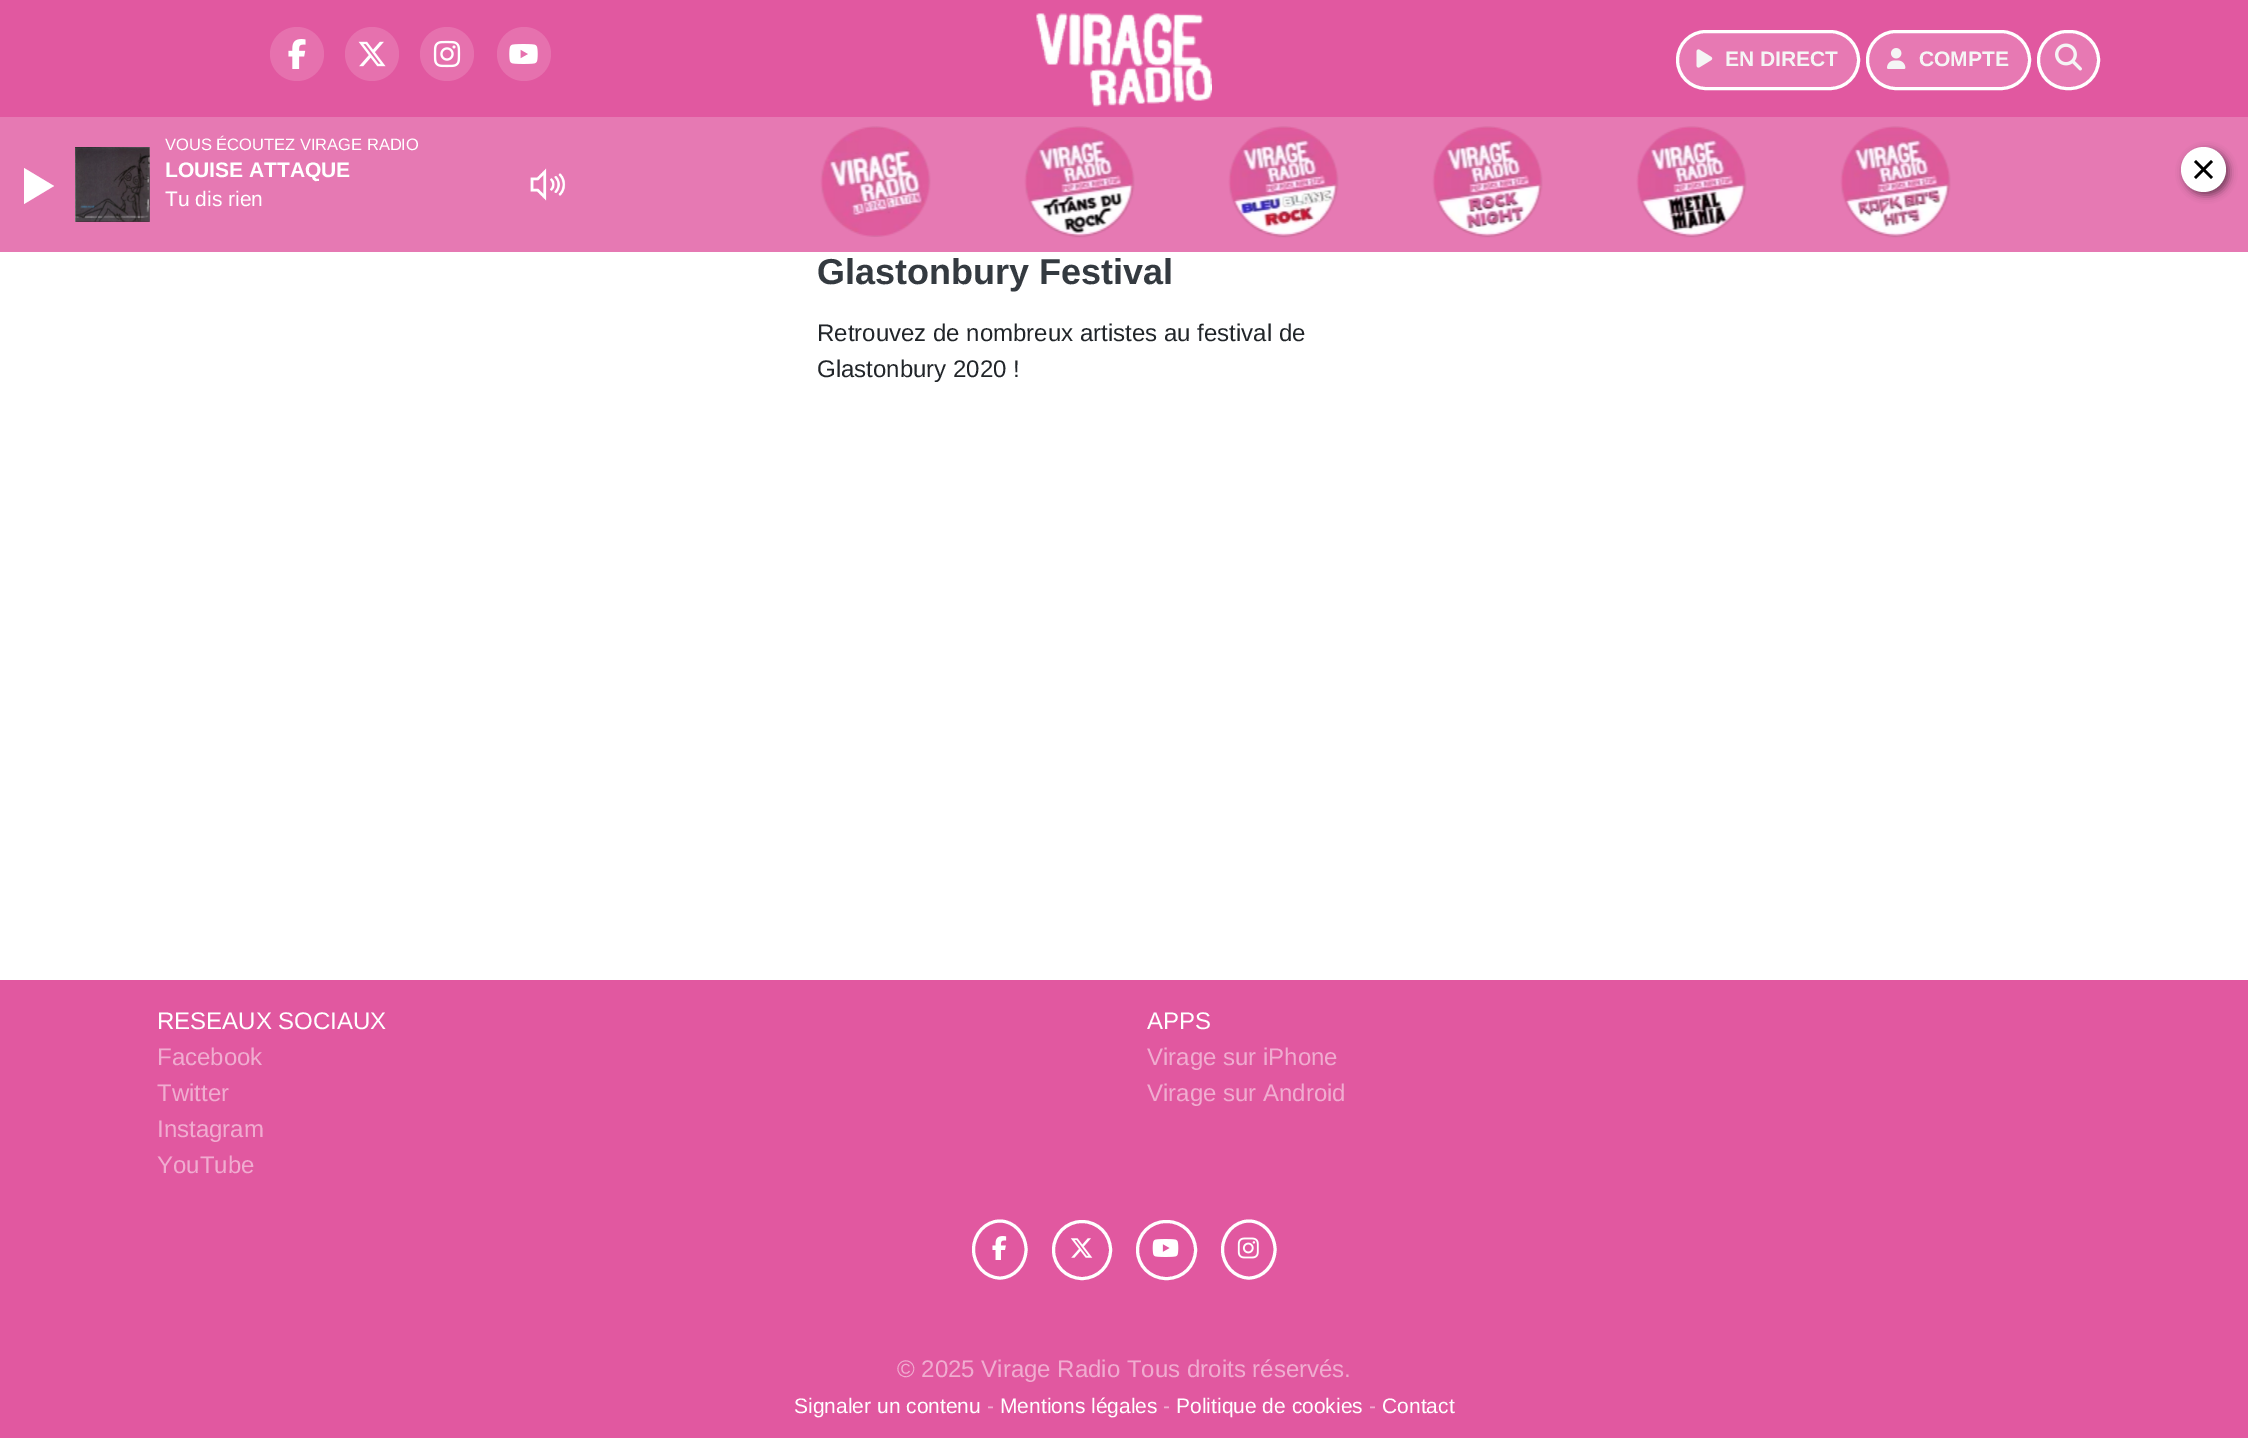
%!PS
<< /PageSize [2248 1438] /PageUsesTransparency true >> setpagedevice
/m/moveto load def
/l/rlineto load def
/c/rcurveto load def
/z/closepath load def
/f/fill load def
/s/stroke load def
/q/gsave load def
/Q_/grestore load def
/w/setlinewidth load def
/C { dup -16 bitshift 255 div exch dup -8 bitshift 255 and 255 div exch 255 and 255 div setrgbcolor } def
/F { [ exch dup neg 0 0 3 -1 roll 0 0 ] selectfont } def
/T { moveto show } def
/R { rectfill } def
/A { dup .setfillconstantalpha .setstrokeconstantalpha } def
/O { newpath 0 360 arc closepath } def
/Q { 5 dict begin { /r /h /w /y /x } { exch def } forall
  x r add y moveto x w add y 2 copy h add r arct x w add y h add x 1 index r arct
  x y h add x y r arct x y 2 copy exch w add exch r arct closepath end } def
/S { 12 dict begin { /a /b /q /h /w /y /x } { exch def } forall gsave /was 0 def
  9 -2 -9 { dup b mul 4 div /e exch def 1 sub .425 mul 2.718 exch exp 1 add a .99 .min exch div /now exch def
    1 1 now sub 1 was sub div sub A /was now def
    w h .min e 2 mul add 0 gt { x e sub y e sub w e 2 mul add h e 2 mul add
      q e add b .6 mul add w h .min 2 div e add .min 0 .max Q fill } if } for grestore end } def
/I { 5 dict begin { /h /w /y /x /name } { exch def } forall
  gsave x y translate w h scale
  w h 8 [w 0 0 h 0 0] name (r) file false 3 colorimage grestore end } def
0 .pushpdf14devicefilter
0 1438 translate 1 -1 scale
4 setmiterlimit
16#FFFFFF C
0 0 2248 1438 R
16#E158A0 C
0 0 2248 117 R
16#E671AE C
297 54 27 O f
(1.rgb) 288 39 18 30 I
372 54 27 O f
(2.rgb) 358 41 28 26 I
447 54 27 O f
(3.rgb) 433 40 28 28 I
524 54 27 O f
(4.rgb) 509 44 29 20 I
(5.rgb) 1036 13 176 94 I
16#E779B3 C
1677.5 31.5 181 57 28.5 Q q f Q_
16#FFFFFF C
3 w
s
(6.rgb) 1696 49 17 19 I
/LiberationSans-Bold 21 F
16#F5F5F5 C
(EN DIRECT) 1725 66 T
16#E779B3 C
1867.5 31.5 162 57 28.5 Q q f Q_
16#FFFFFF C
s
(7.rgb) 1887 48 19 21 I
16#F5F5F5 C
(COMPTE) 1919 66 T
16#E779B3 C
2038.5 31.5 60 57 28.5 Q q f Q_
16#FFFFFF C
s
(8.rgb) 2055 43 27 28 I
/LiberationSans-Bold 36 F
16#343A40 C
(Glastonbury Festival) 817 284 T
/LiberationSans-Regular 24 F
16#212529 C
(Retrouvez de nombreux artistes au festival de) 817 341 T
(Glastonbury 2020 !) 817 377 T
16#E158A0 C
0 980 2248 458 R
16#FFFFFF C
(RESEAUX SOCIAUX) 157 1029 T
16#F0ACD0 C
(Facebook) 157 1065 T
(Twitter) 157 1101 T
(Instagram) 157 1137 T
(YouTube) 157 1173 T
16#FFFFFF C
(APPS) 1147 1029 T
16#F0ACD0 C
(Virage sur iPhone) 1147 1065 T
(Virage sur Android) 1147 1101 T
16#FFFFFF C
1000 1221 m 14 0 26 13 26 28.5 c 0 15.5 -12 28.5 -26 28.5 c -14.5 0 -26.5 -13 -26.5 -28.5 c 0 -15.5 12 -28.5 26.5 -28.5 c z s
(9.rgb) 992 1236 15 24 I
1082 1250 28.5 O s
(10.rgb) 1070 1238 23 20 I
1137.5 1221.5 58 57 28.5 Q s
(11.rgb) 1152 1239 27 18 I
1249 1221 m 14 0 26 13 26 28.5 c 0 15.5 -12 28.5 -26 28.5 c -14.5 0 -26.5 -13 -26.5 -28.5 c 0 -15.5 12 -28.5 26.5 -28.5 c z s
(12.rgb) 1237 1237 22 22 I
16#F0ACD0 C
(© 2025 Virage Radio Tous droits réservés.) 897 1377 T
/LiberationSans-Regular 21 F
16#FFFFFF C
(Signaler un contenu) 794 1413 T
16#F0ACD0 C
(-) 987 1413 T
16#FFFFFF C
(Mentions légales) 1000 1413 T
16#F0ACD0 C
(-) 1163 1413 T
16#FFFFFF C
(Politique de cookies) 1176 1413 T
16#F0ACD0 C
(-) 1369 1413 T
16#FFFFFF C
(Contact) 1382 1413 T
16#E679B3 C
0 117 2248 135 R
/LiberationSans-Regular 16.5 F
16#FFFFFF C
(VOUS ÉCOUTEZ VIRAGE RADIO) 165 150 T
(13.rgb) 75 147 75 75 I
/LiberationSans-Bold 21 F
(LOUISE ATTAQUE) 165 177 T
/LiberationSans-Regular 21 F
(Tu dis rien) 165 206 T
24 204 m 0 -36 l 30 18 l z f
(14.rgb) 530 168 36 33 I
(15.rgb) 820 126 111 111 I
(16.rgb) 1024 126 111 112 I
(17.rgb) 1228 126 111 112 I
(18.rgb) 1432 126 111 112 I
(19.rgb) 1636 126 111 112 I
(20.rgb) 1840 126 111 112 I
16#000000 C
2184 150 45 45 22.5 4 .5 S
16#FFFFFF C
2203.5 169.5 22.5 O f
16#000000 C
2196 160 m 17 17 l -2 2 l -17 -17 l z f
2194 177 m 17 -17 l 2 2 l -17 17 l z f
.poppdf14devicefilter showpage
